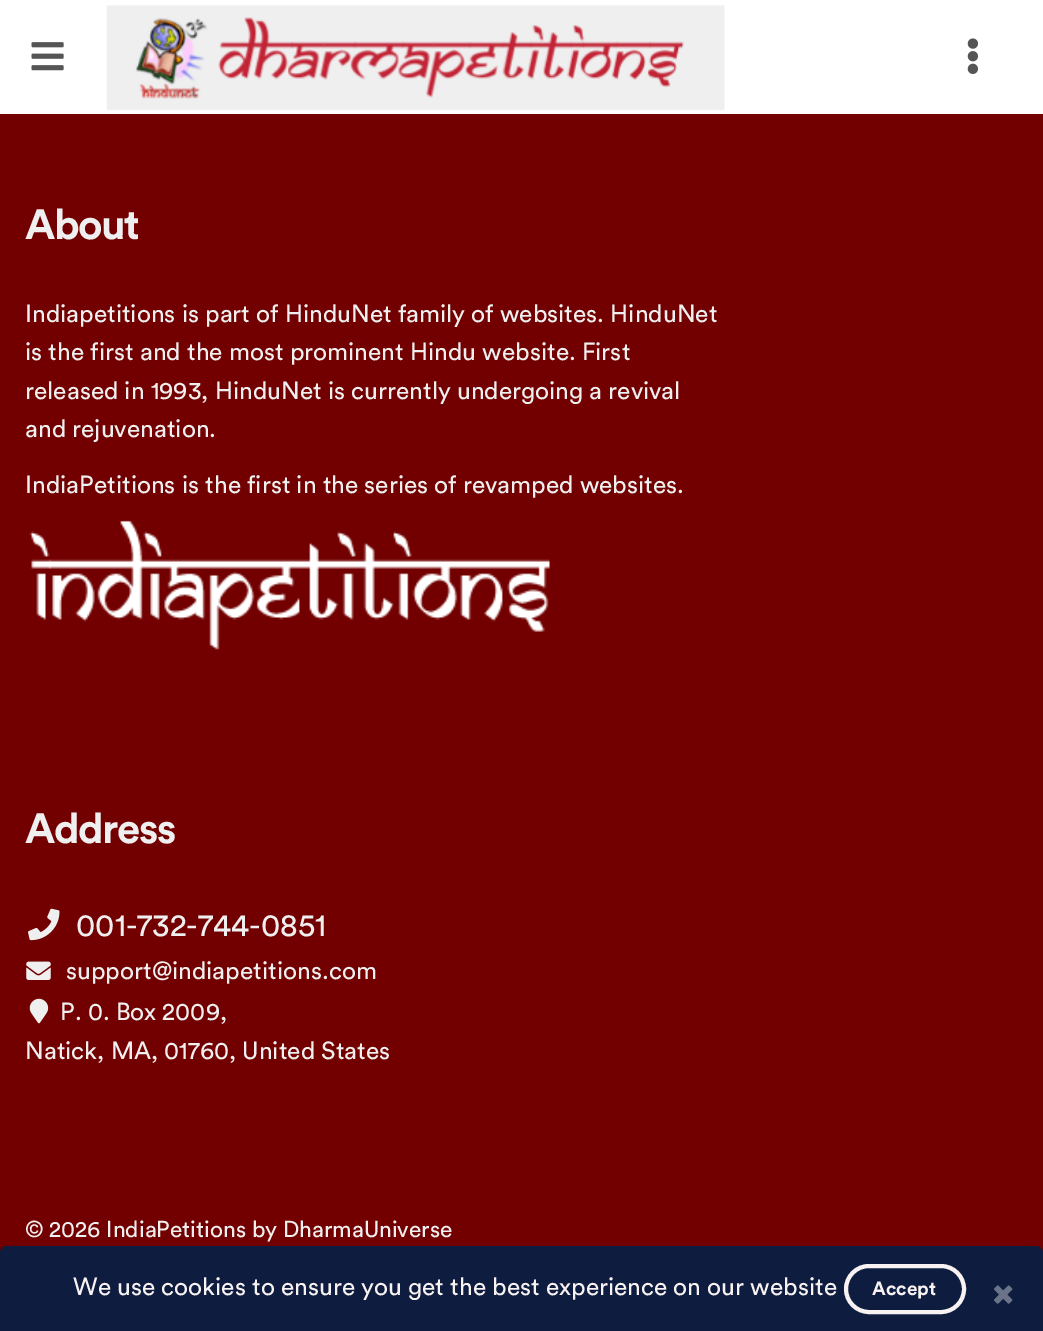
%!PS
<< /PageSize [1043 1331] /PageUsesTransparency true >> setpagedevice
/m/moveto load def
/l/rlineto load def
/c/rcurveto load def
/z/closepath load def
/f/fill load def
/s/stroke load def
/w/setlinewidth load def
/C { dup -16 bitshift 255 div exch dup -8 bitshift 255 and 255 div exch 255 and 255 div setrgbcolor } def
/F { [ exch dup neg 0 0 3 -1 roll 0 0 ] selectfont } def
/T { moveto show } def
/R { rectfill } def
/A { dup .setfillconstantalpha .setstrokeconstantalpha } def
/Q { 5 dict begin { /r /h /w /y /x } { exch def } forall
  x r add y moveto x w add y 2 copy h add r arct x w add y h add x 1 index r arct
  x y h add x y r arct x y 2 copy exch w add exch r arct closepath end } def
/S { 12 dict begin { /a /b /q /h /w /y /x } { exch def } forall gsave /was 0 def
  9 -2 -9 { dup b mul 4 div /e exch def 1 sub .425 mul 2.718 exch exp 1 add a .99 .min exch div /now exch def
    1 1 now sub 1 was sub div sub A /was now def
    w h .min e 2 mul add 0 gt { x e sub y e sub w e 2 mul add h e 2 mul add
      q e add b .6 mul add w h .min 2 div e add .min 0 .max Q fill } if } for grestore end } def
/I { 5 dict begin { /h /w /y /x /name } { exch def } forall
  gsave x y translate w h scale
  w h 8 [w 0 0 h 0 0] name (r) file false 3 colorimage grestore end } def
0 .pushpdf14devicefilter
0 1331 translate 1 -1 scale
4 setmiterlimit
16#720000 C
0 0 1043 1331 R
16#FFFFFF C
0 0 1043 114 R
(1.rgb) 31 42 33 29 I
(2.rgb) 106 5 619 106 I
(3.rgb) 967 38 12 36 I
/Circular-Bold 42 F
16#EFEFEF C
25 239 m -1.5 0 (About) ashow
/Circular-Regular 24.5 F
(Indiapetitions is part of HinduNet family of websites. HinduNet) 25 322 T
(is the first and the most prominent Hindu website. First) 25 360 T
(released in 1993, HinduNet is currently undergoing a revival) 25 399 T
(and rejuvenation.) 25 437 T
(IndiaPetitions is the first in the series of revamped websites.) 25 493 T
(4.rgb) 29 520 521 130 I
/Circular-Bold 42 F
25 843 m -1.5 0 (Address) ashow
(5.rgb) 28 908 32 33 I
/Circular-Regular 31.5 F
(001-732-744-0851) 76 936 T
(6.rgb) 26 961 25 19 I
/Circular-Regular 24.5 F
(support@indiapetitions.com) 66 979 T
(7.rgb) 29 998 20 26 I
(P. 0. Box 2009,) 60 1020 T
(Natick, MA, 01760, United States) 25 1059 T
/Circular-Regular 22.75 F
(© 2026 IndiaPetitions by DharmaUniverse) 25 1237 T
16#060000 C
0 1248 1043 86 7 2 .2 S
16#0E1D3F C
7 1246 m 1029 0 l 4 0 7 3 7 7 c 0 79 l -1043 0 l 0 -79 l 0 -4 3 -7 7 -7 c z f
/Circular-Regular 24.5 F
16#F8F2F2 C
(We use cookies to ensure you get the best experience on our website) 73 1295 T
4 w
846 1266 118 46 23 Q s
/Circular-Bold 19 F
(Accept) 872 1295 T
(8.rgb) 994 1285 19 19 I
.poppdf14devicefilter showpage
